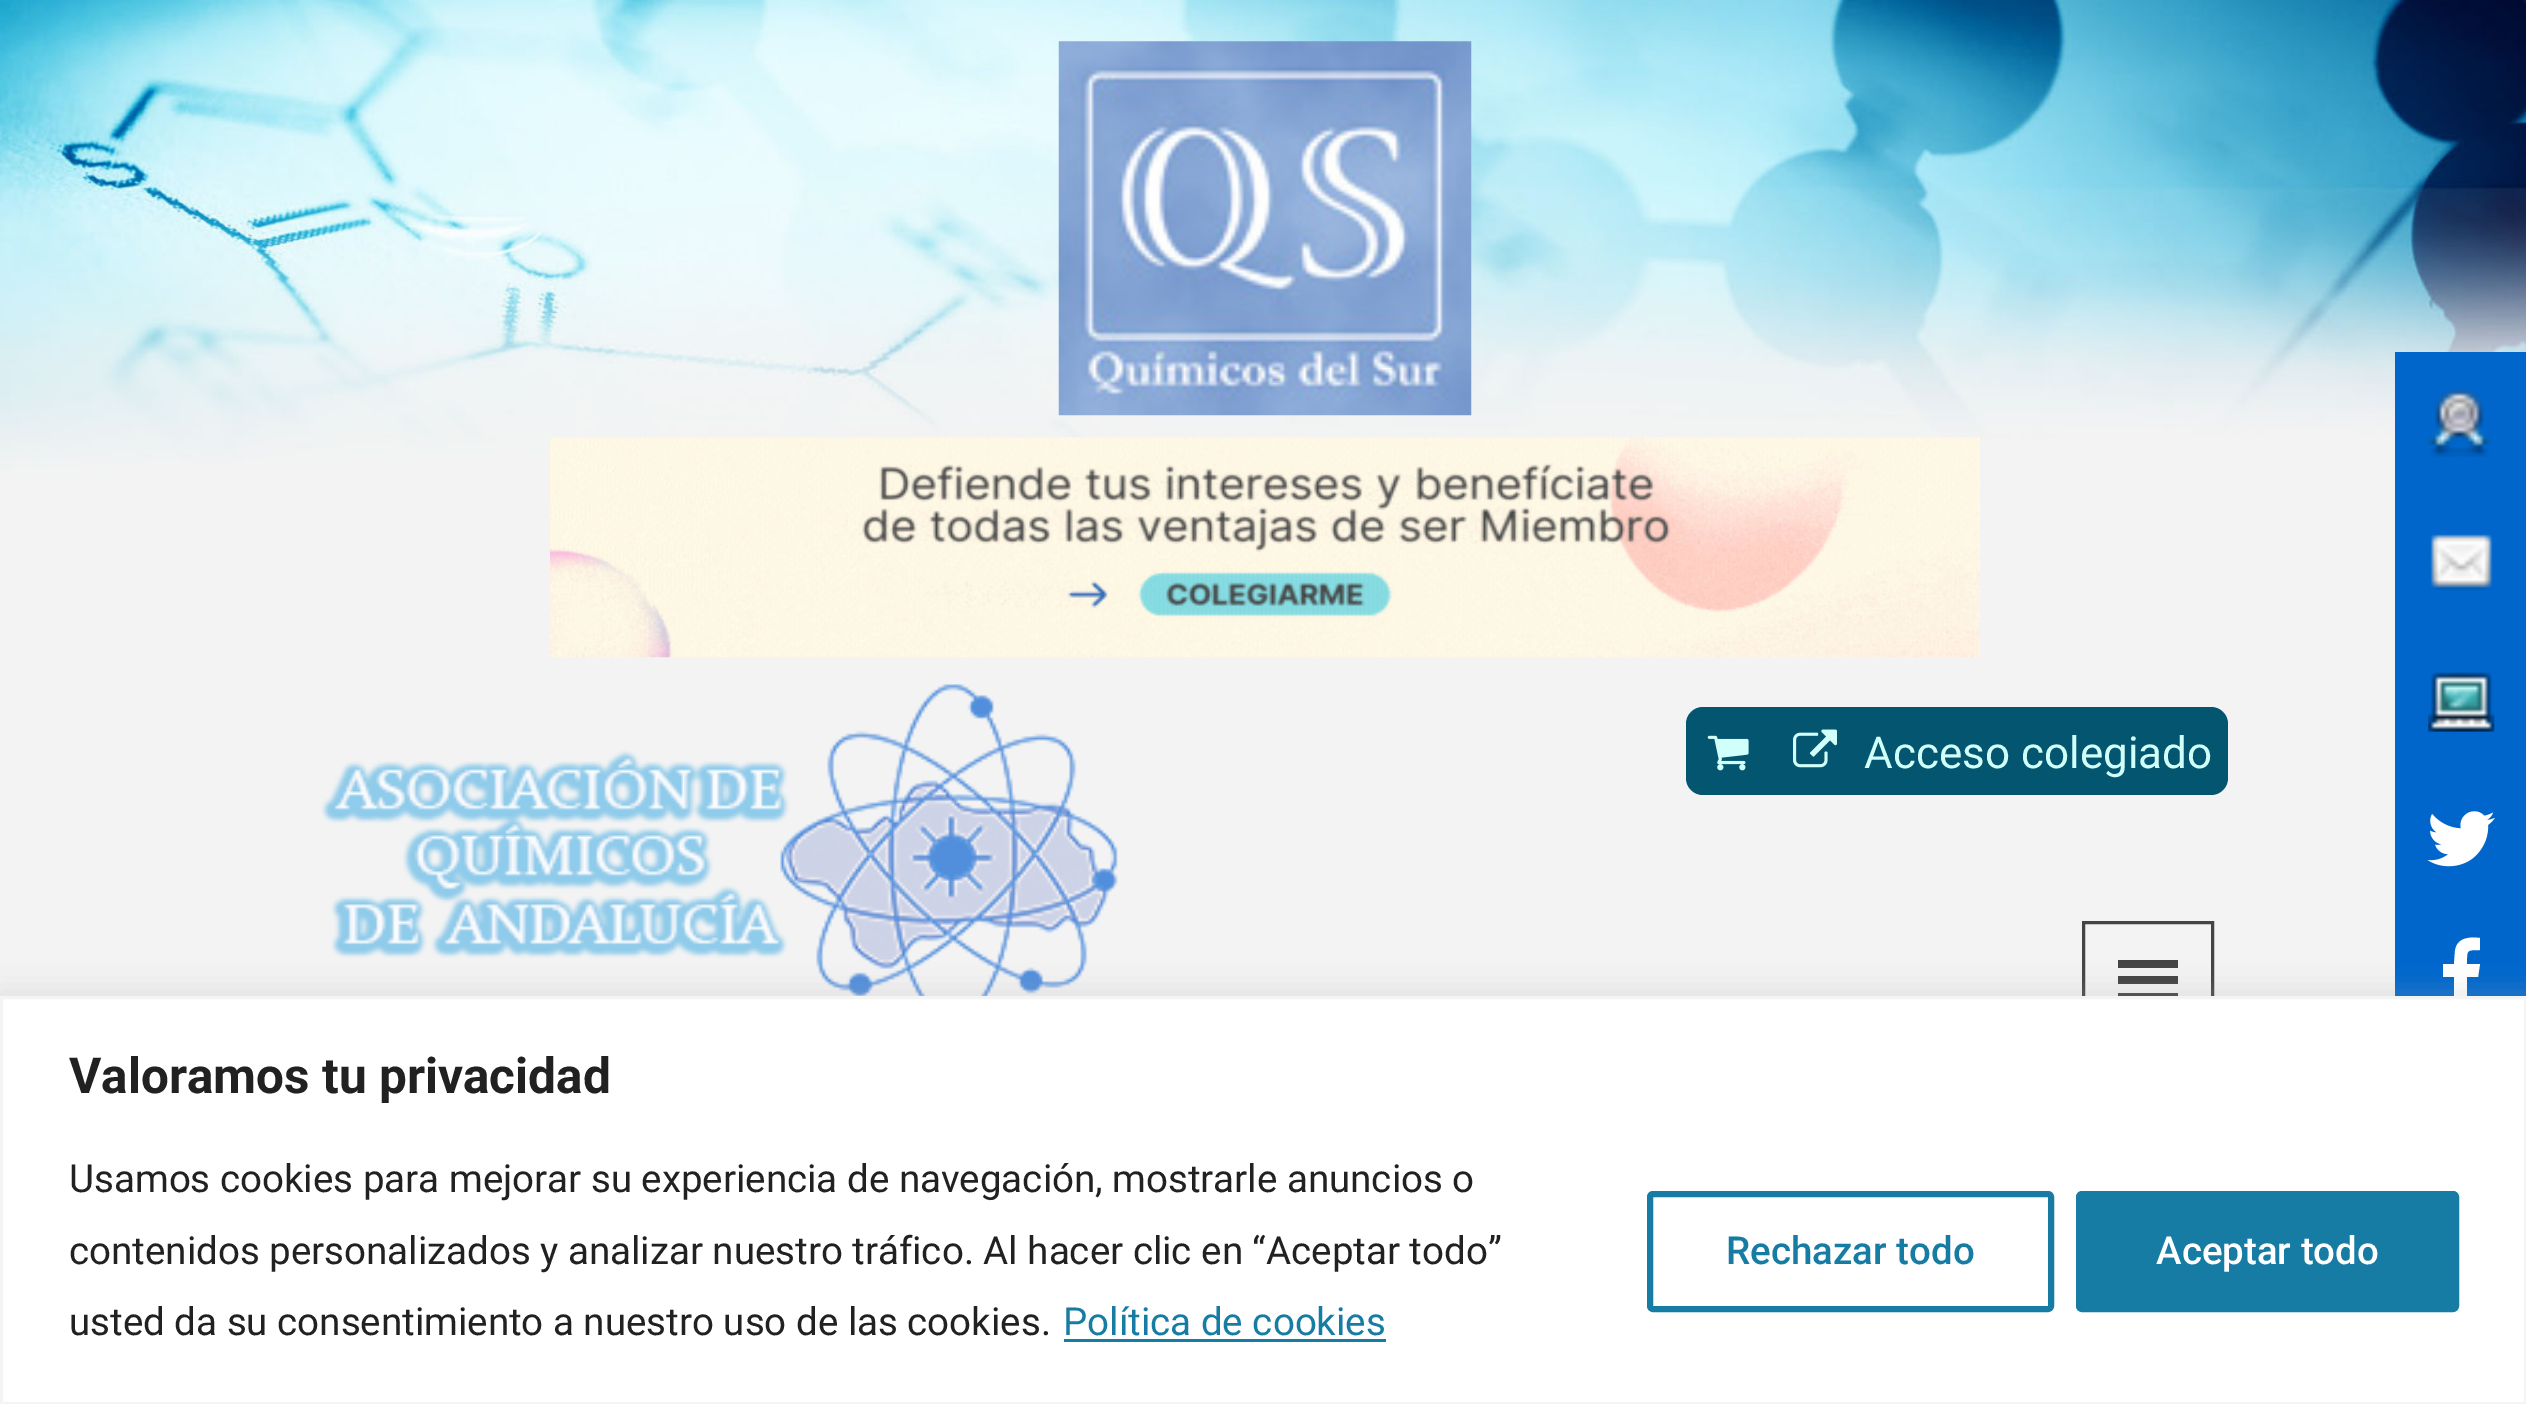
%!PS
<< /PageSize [2526 1404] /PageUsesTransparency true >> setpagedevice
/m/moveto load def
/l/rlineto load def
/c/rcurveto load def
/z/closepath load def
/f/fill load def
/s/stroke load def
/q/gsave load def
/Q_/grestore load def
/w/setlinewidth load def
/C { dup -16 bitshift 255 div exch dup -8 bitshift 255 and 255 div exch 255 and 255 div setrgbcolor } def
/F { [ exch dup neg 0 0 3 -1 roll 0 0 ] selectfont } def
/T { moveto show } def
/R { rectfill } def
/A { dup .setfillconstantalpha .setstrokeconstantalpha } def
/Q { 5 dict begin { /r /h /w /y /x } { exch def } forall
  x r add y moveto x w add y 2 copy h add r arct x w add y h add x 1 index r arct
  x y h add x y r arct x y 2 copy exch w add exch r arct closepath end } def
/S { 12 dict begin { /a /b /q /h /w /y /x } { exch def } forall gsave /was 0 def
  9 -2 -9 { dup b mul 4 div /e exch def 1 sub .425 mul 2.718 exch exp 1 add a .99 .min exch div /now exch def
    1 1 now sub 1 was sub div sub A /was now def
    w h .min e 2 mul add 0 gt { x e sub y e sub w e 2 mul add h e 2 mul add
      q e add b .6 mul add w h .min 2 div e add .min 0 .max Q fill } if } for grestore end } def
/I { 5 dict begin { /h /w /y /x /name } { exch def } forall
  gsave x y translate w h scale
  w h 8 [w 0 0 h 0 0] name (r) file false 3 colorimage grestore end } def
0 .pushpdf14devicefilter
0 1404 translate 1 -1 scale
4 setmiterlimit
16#FFFFFF C
0 0 2526 1404 R
(1.rgb) 0 0 2526 996 I
(2.rgb) 1058 41 414 375 I
(3.rgb) 550 437 1430 221 I
(4.rgb) 321 684 797 312 I
16#035570 C
1686 707 542 88 17 Q f
(5.rgb) 1707 735 42 36 I
(6.rgb) 1793 729 44 39 I
/Roboto-Regular 44 F
16#D1FFF9 C
(Acceso colegiado) 1864 768 T
16#444444 C
3 w
2083.5 922.5 129 118 rectstroke
2118 960 60 8 R
2118 976 60 8 R
2118 993 60 3 R
16#0066CC C
2395 352 131 644 R
(7.rgb) 2428 390 64 67 I
(8.rgb) 2430 534 63 57 I
(9.rgb) 2428 672 67 60 I
(10.rgb) 2427 811 68 56 I
16#FFFFFF C
2480 938 m 0 12 l -14 0 -13 0 -13 14 c 13 0 l -2 13 l -11 0 l 0 32 l -13 0 l 0 -32 l -11 0 l 0 -13 l 11 0 l 1 -13 l 2 -14 15 -14 25 -13 c z f
16#ACABAB C
0 993 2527 410 0 14 .3 S
16#FFFFFF C
1.5 997.5 m 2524 0 l 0 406 l -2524 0 l z q f Q_
16#F4F4F4 C
s
/Roboto-Bold 49.5 F
16#212121 C
(Valoramos tu privacidad) 69 1093 T
/Roboto-Regular 38.5 F
(Usamos cookies para mejorar su experiencia de navegación, mostrarle anuncios o) 69 1192 T
(contenidos personalizados y analizar nuestro tráfico. Al hacer clic en “Aceptar todo”) 69 1264 T
(usted da su consentimiento a nuestro uso de las cookies.) 69 1335 T
16#177CA3 C
(Política de cookies) 1063 1335 T
1064 1339 322 3 R
6 w
1650 1194 401 115 3 Q s
/Roboto-Medium 38.5 F
(Rechazar todo) 1726 1264 T
2079 1194 377 115 3 Q q f Q_
s
16#FFFFFF C
(Aceptar todo) 2156 1264 T
.poppdf14devicefilter showpage
